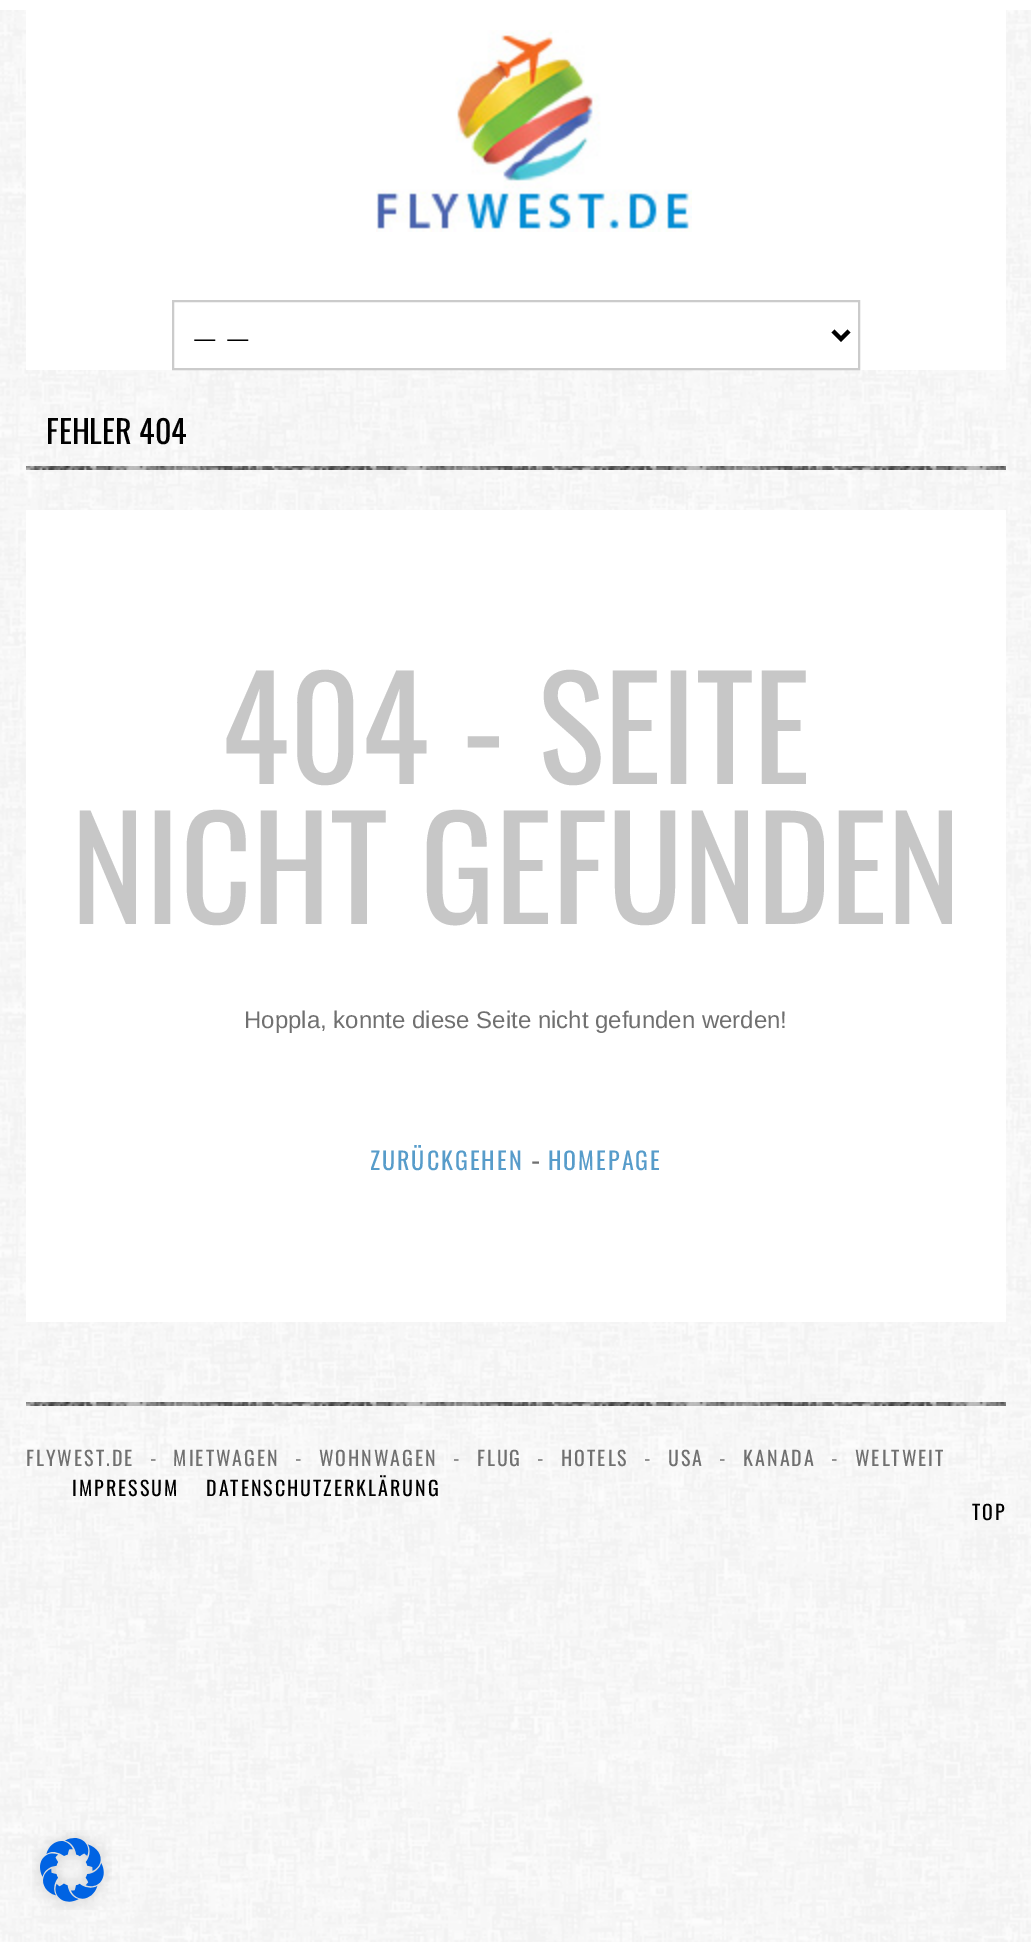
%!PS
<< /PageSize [1031 1942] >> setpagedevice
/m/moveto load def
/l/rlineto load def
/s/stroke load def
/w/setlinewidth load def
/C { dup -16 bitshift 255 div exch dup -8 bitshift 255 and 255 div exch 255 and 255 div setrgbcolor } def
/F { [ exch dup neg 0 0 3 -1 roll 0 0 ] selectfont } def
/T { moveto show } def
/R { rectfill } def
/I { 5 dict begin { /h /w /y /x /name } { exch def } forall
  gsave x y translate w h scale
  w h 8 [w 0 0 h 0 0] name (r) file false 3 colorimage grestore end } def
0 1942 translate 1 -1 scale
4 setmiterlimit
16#FFFFFF C
0 0 1031 1942 R
(1.rgb) 0 10 1031 1932 I
26 10 980 360 R
(2.rgb) 376 30 316 202 I
16#CBCBCB C
2 w
173 301 686 68 rectstroke
16#000000 C
4 w
833 331 m 8 8 l 8 -8 l s
/Oswald-Light 28 F
193 348 m 2 0 (— —) ashow
(3.rgb) 26 466 980 4 I
/Oswald-Regular 32 F
(FEHLER 404) 46 444 T
16#FFFFFF C
26 510 980 812 R
/Oswald-Regular 140 F
16#C7C7C7 C
(404 - SEITE) 221 784 T
(NICHT GEFUNDEN) 71 924 T
/LiberationSans-Regular 24 F
16#707070 C
(Hoppla, konnte diese Seite nicht gefunden werden!) 244 1028 T
/Oswald-Regular 24 F
16#579CCA C
370 1170 m 2 0 (ZURÜCKGEHEN) ashow
/LiberationSans-Regular 28 F
16#707070 C
(-) 531 1170 T
/Oswald-Regular 24 F
16#579CCA C
548 1170 m 2 0 (HOMEPAGE) ashow
(3.rgb) 26 1402 980 4 I
/Oswald-Regular 20 F
16#707070 C
26 1466 m 8.75 0 32 2 0 (FLYWEST.DE - MIETWAGEN - WOHNWAGEN - FLUG - HOTELS - USA - KANADA - WELTWEIT) awidthshow
16#000000 C
72 1496 m 2 0 (IMPRESSUM) ashow
206 1496 m 2 0 (DATENSCHUTZERKLÄRUNG) ashow
972 1520 m 2 0 (TOP) ashow
(4.rgb) 32 1830 80 80 I
showpage
